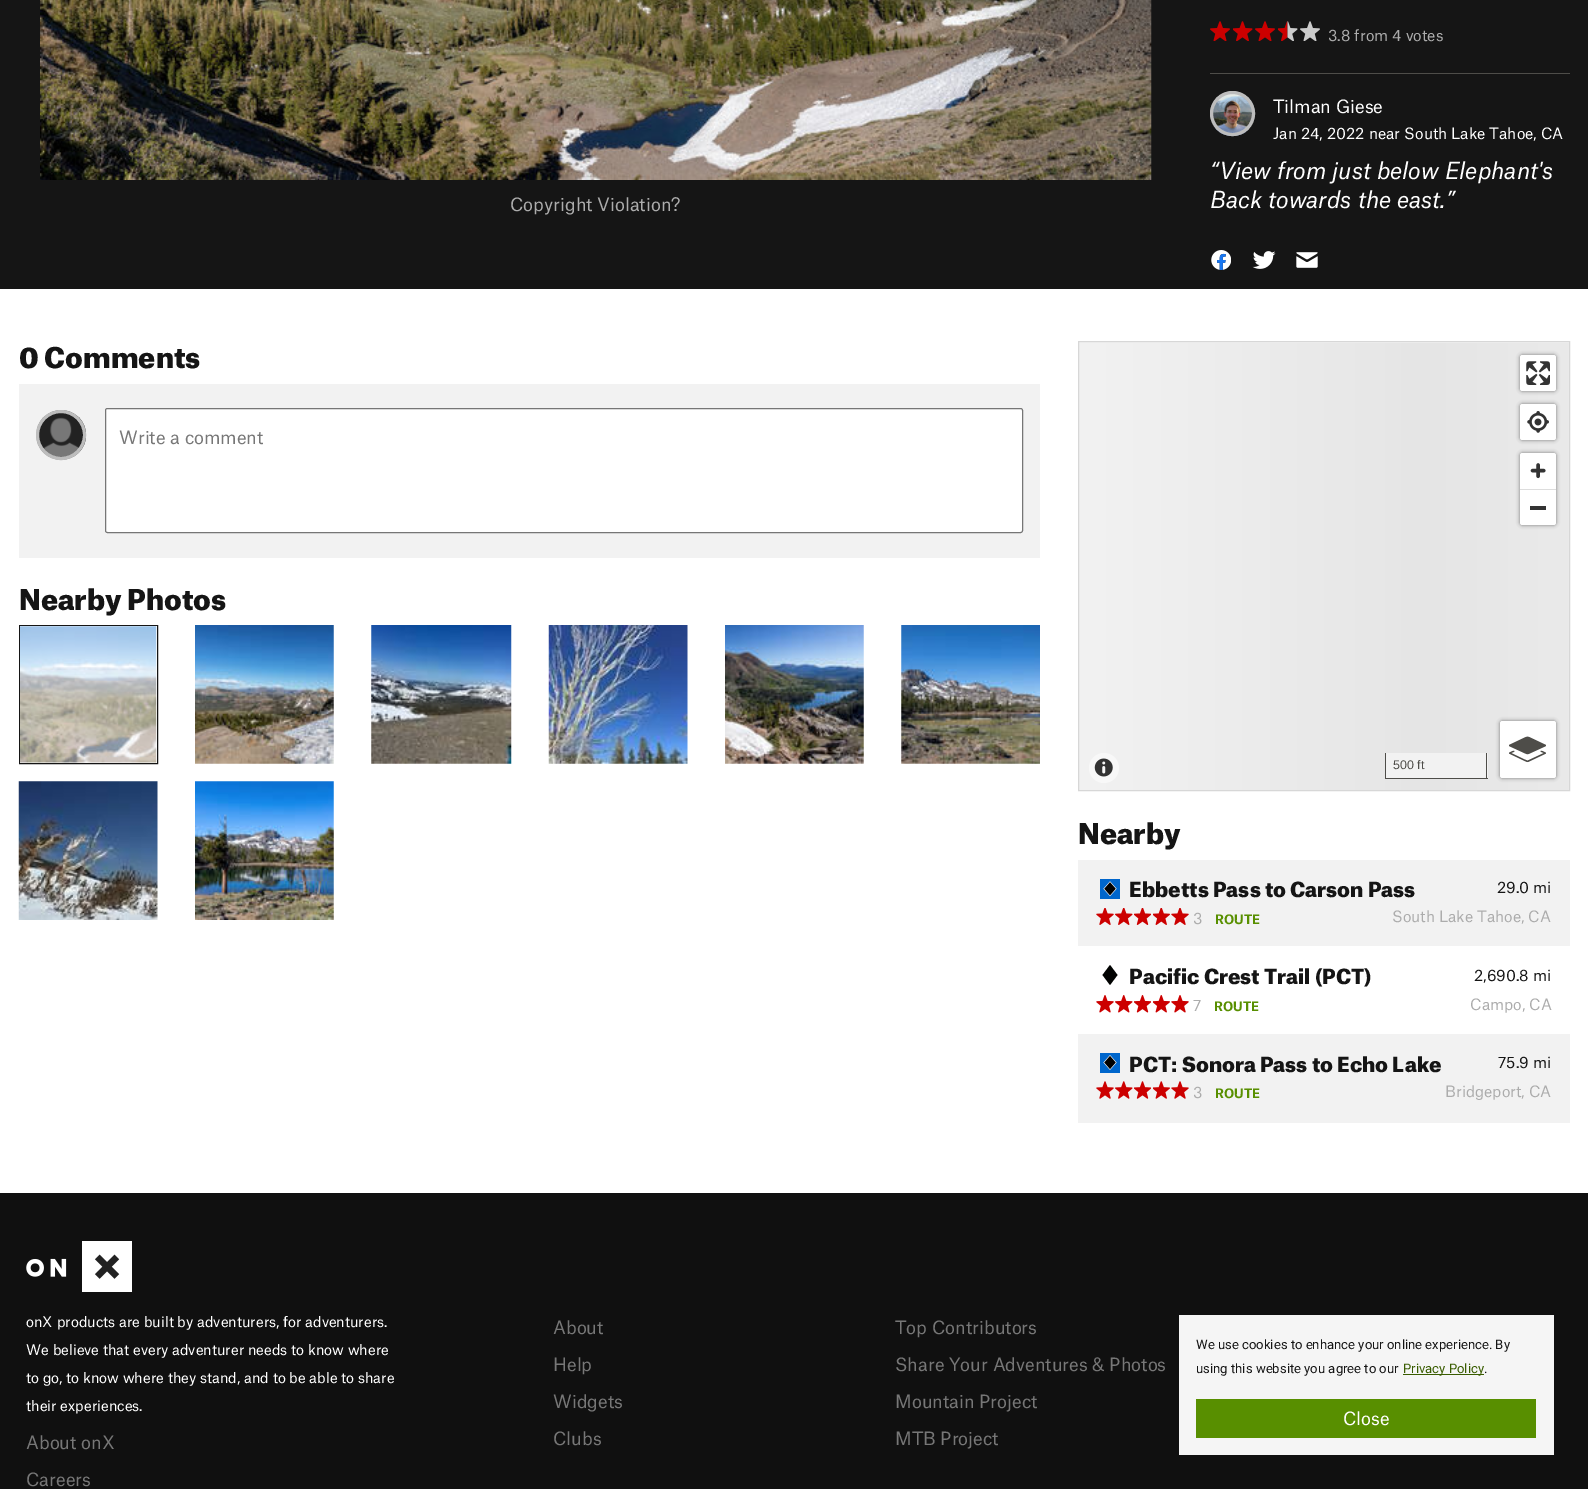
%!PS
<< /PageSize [1588 1489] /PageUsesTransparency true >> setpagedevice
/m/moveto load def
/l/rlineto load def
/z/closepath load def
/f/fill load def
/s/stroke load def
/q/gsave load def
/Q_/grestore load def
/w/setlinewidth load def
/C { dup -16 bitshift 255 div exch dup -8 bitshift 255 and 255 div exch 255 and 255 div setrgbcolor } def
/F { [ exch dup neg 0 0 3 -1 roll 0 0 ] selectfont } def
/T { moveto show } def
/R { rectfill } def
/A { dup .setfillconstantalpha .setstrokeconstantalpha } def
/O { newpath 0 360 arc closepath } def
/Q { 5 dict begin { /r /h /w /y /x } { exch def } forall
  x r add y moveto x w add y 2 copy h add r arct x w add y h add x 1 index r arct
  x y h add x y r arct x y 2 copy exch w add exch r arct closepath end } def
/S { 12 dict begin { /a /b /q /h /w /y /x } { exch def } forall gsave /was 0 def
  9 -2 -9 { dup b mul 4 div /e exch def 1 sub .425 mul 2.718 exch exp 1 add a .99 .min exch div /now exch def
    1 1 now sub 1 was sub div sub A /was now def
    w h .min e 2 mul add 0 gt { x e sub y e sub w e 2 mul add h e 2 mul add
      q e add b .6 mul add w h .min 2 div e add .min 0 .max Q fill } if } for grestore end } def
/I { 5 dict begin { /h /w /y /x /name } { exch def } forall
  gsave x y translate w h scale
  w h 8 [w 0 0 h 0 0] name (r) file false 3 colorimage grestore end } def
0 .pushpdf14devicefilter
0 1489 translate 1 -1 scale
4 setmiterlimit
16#FFFFFF C
0 0 1588 1489 R
16#151515 C
0 0 1588 289 R
(1.rgb) 40 0 1112 180 I
/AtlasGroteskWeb-Regular 17.5 F
16#ACACAC C
(Copyright Violation?) 510 211 T
(2.rgb) 1210 21 20 20 I
(3.rgb) 1233 21 20 20 I
(2.rgb) 1255 21 20 20 I
(4.rgb) 1278 21 20 20 I
(5.rgb) 1300 21 20 20 I
/AtlasGroteskWeb-Regular 15 F
(3.8 from 4 votes) 1328 41 T
16#4E4D49 C
1210 73 360 1 R
(6.rgb) 1210 91 45 46 I
16#BDBDBD C
3 w
1232.5 113.5 21 O s
/AtlasGroteskWeb-Regular 17.5 F
16#FFFFFF C
(Tilman Giese) 1273 113 T
/AtlasGroteskWeb-Regular 15 F
(Jan 24, 2022 near South Lake Tahoe, CA) 1273 139 T
/AtlasGroteskWeb-Italic 22.5 F
(“View from just below Elephant's) 1210 179 T
(Back towards the east.”) 1210 208 T
(7.rgb) 1211 250 20 20 I
(8.rgb) 1252 251 24 18 I
(9.rgb) 1296 252 22 16 I
/AtlasGroteskWeb-Black 27.5 F
16#151515 C
(0 Comments) 19 368 T
16#F2F2F2 C
19 384 1021 174 R
(10.rgb) 36 410 50 50 I
16#BDBDBD C
61 435 23.5 O s
16#FFFFFF C
105.5 408.5 917 124 2 Q q f Q_
16#767676 C
1 w
s
/AtlasGroteskWeb-Regular 17.5 F
16#777777 C
(Write a comment) 119 444 T
/AtlasGroteskWeb-Black 27.5 F
16#151515 C
(Nearby Photos) 19 610 T
19.5 625.5 138 138 rectstroke
(11.rgb) 20 626 137 137 I
(12.rgb) 195 625 139 139 I
(13.rgb) 371 625 141 139 I
(14.rgb) 548 625 140 139 I
(15.rgb) 725 625 139 139 I
(16.rgb) 901 625 139 139 I
(17.rgb) 18 781 140 139 I
(18.rgb) 195 781 139 139 I
16#F2F2F2 C
1079 342 490 1 R
q 1079 343 m 490 0 l 0 447 l -490 0 l z clip newpath
<< /ShadingType 2 /ColorSpace /DeviceRGB /Coords [1079 566 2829 566] /Extend [true true] /Function << /FunctionType 3 /Domain [0 1] /Functions [<< /FunctionType 2 /Domain [0 1] /C0 [.949 .949 .949] /C1 [.898 .898 .898] /N 1 >> << /FunctionType 2 /Domain [0 1] /C0 [.898 .898 .898] /C1 [.949 .949 .949] /N 1 >> << /FunctionType 2 /Domain [0 1] /C0 [.949 .949 .949] /C1 [.949 .949 .949] /N 1 >>] /Bounds [.2 .4] /Encode [0 1 0 1 0 1] >> >> shfill Q_
16#D7D7D7 C
1078.5 341.5 491 449 rectstroke
16#F8F8F8 C
1104 768 15 O f
(19.rgb) 1094 758 19 19 I
16#000000 C
1520 355 36 36 2.5 2 .5 S
16#FFFFFF C
1520 355 36 36 2.5 Q f
(20.rgb) 1526 361 24 24 I
16#000000 C
1520 404 36 36 2.5 2 .5 S
16#FFFFFF C
1520 404 36 36 2.5 Q f
(21.rgb) 1527 411 22 22 I
16#000000 C
1520 453 36 72 2.5 2 .5 S
16#FFFFFF C
1520 453 36 72 2.5 Q f
(22.rgb) 1530 463 16 16 I
16#DDDDDD C
1520 489 36 1 R
16#333333 C
1530 506 16 4 R
16#F2F2F2 C
1386 753 102 25 R
16#4E4D49 C
1486 753 1 26 R
1385 778 103 1 R
1385 753 1 26 R
/LiberationSans-Regular 12.5 F
(500 ft) 1393 769 T
16#000000 C
1500 721 56 57 2.5 2 .5 S
16#FFFFFF C
1500 721 56 57 2.5 Q f
(23.rgb) 1509 736 37 27 I
/AtlasGroteskWeb-Black 27.5 F
16#151515 C
(Nearby) 1078 844 T
16#F2F2F2 C
1078 860 492 86 R
(24.rgb) 1100 879 20 20 I
/AtlasGroteskWeb-Black 20 F
16#151515 C
(Ebbetts Pass to Carson Pass) 1129 897 T
/AtlasGroteskWeb-Regular 15 F
(29.0) 1497 893 T
(mi) 1533 893 T
(25.rgb) 1096 908 18 17 I
(26.rgb) 1115 908 18 17 I
(27.rgb) 1134 908 17 17 I
(28.rgb) 1153 908 17 17 I
(25.rgb) 1171 908 18 17 I
16#ACACAC C
(3) 1193 924 T
/AtlasGroteskWeb-Bold 12.5 F
16#588F00 C
(ROUTE) 1215 924 T
/AtlasGroteskWeb-Regular 15 F
16#ACACAC C
(South Lake Tahoe, CA) 1392 922 T
/AtlasGroteskWeb-Black 20 F
16#151515 C
(Pacific Crest Trail \(PCT\)) 1129 984 T
16#010201 C
1110 965 m -7.5 10 l 7.5 10 l 7.5 -10 l z eofill
/AtlasGroteskWeb-Regular 15 F
16#151515 C
(2,690.8) 1474 981 T
(mi) 1533 981 T
(29.rgb) 1096 995 18 18 I
(30.rgb) 1115 995 18 18 I
(31.rgb) 1134 995 17 18 I
(32.rgb) 1153 995 17 18 I
(29.rgb) 1171 995 18 18 I
16#ACACAC C
(7) 1193 1011 T
/AtlasGroteskWeb-Bold 12.5 F
16#588F00 C
(ROUTE) 1214 1011 T
/AtlasGroteskWeb-Regular 15 F
16#ACACAC C
(Campo, CA) 1470 1010 T
16#F2F2F2 C
1078 1034 492 89 R
(33.rgb) 1100 1053 20 20 I
/AtlasGroteskWeb-Black 20 F
16#151515 C
(PCT: Sonora Pass to Echo Lake) 1129 1072 T
/AtlasGroteskWeb-Regular 15 F
(75.9) 1498 1068 T
(mi) 1533 1068 T
(34.rgb) 1096 1081 18 18 I
(35.rgb) 1115 1081 18 18 I
(36.rgb) 1134 1081 17 18 I
(37.rgb) 1153 1081 17 18 I
(34.rgb) 1171 1081 18 18 I
16#ACACAC C
(3) 1193 1098 T
/AtlasGroteskWeb-Bold 12.5 F
16#588F00 C
(ROUTE) 1215 1098 T
/AtlasGroteskWeb-Regular 15 F
16#ACACAC C
(Bridgeport, CA) 1445 1097 T
16#101010 C
0 1193 1588 296 R
(38.rgb) 26 1241 106 51 I
/AtlasGroteskWeb-Regular 14 F
16#FFFFFF C
(onX products are built by adventurers, for adventurers.) 26 1327 T
(We believe that every adventurer needs to know where) 26 1355 T
(to go, to know where they stand, and to be able to share) 26 1383 T
(their experiences.) 26 1411 T
/AtlasGroteskWeb-Regular 17.5 F
16#777777 C
(About onX) 26 1449 T
(Careers) 26 1486 T
(About) 553 1334 T
(Top Contributors) 895 1334 T
(Help) 553 1371 T
(Share Your Adventures & Photos) 895 1371 T
(Widgets) 553 1408 T
(Mountain Project) 895 1408 T
(Clubs) 553 1445 T
(MTB Project) 895 1445 T
16#F5F5F5 C
1179 1315 375 140 R
/Roboto-Regular 13.1 F
16#151515 C
(We use cookies to enhance your online experience. By) 1196 1349 T
(using this website you agree to our) 1196 1373 T
16#395C00 C
1403 1374 81 1 R
(Privacy Policy) 1403 1373 T
16#151515 C
(.) 1484 1373 T
16#588F00 C
1196 1399 340 39 R
/AtlasGroteskWeb-Regular 17.5 F
16#FFFFFF C
(Close) 1343 1425 T
.poppdf14devicefilter showpage
